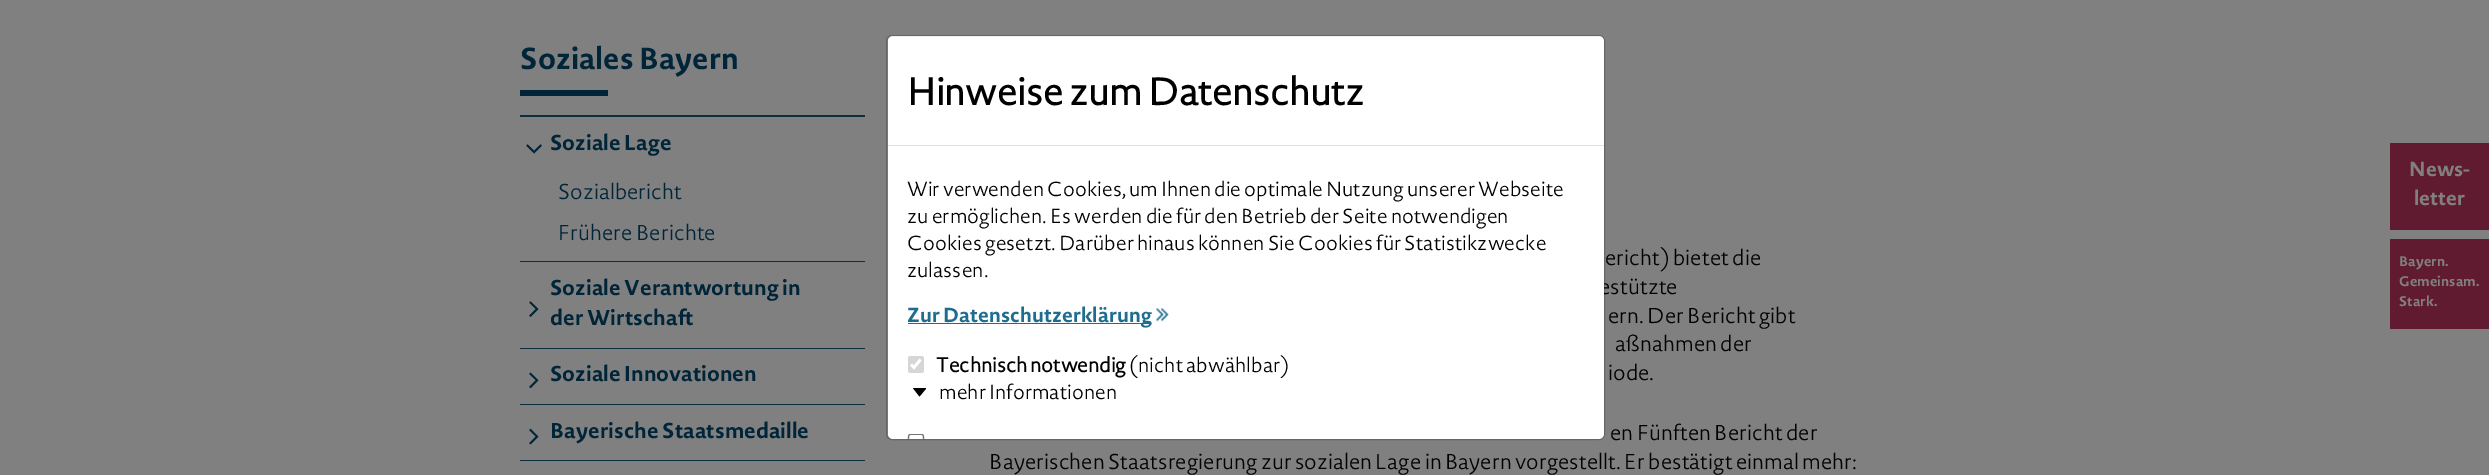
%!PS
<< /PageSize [2489 475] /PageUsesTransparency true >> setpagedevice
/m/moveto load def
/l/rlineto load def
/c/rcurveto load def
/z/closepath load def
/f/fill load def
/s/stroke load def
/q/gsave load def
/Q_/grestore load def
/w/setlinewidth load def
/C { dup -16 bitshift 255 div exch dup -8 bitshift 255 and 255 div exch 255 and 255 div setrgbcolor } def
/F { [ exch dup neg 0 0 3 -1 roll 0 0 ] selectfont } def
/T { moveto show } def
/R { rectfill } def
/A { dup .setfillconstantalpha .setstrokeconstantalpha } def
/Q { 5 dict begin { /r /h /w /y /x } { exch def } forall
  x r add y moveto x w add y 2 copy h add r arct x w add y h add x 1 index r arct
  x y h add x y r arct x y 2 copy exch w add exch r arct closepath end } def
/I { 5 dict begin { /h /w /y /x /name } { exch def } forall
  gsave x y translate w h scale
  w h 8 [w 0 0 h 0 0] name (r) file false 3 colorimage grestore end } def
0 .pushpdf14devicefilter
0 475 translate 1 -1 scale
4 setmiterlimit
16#808080 C
0 0 2489 475 R
/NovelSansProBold-Bold 30 F
16#002539 C
(Soziales Bayern) 520 69 T
520 90 88 6 R
16#0D2E40 C
520 115 345 2 R
(1.rgb) 526 144 16 10 I
/NovelSansProBold-Bold 21.25 F
16#002539 C
(Soziale Lage) 550 150 T
/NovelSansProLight-Light 21.25 F
(Sozialbericht) 558 199 T
(Frühere Berichte) 558 240 T
16#0D2E40 C
520 261 345 1 R
(2.rgb) 529 301 10 16 I
/NovelSansProBold-Bold 21.25 F
16#002539 C
(Soziale Verantwortung in) 550 295 T
(der Wirtschaft) 550 325 T
16#0D2E40 C
520 348 345 1 R
(3.rgb) 529 372 10 17 I
16#002539 C
(Soziale Innovationen) 550 381 T
16#0D2E40 C
520 404 345 1 R
(4.rgb) 529 428 10 17 I
16#002539 C
(Bayerische Staatsmedaille) 550 438 T
16#0D2E40 C
520 460 345 1 R
/NovelSansProLight-Light 21.25 F
16#000000 C
(ericht\) bietet die) 1605 265 T
(estützte) 1599 294 T
(ern. Der Bericht gibt) 1608 323 T
(aßnahmen der) 1615 351 T
(iode.) 1608 380 T
(en Fünften Bericht der) 1610 440 T
(Bayerischen Staatsregierung zur sozialen Lage in Bayern vorgestellt. Er bestätigt einmal mehr:) 989 469 T
16#611B30 C
2390 143 99 87 R
/NovelSansProBold-Bold 20 F
16#808080 C
(News-) 2409 176 T
(letter) 2414 205 T
16#611B30 C
2390 239 99 90 R
/NovelSansProBold-Bold 13.75 F
16#808080 C
(Bayern.) 2399 266 T
(Gemeinsam.) 2399 286 T
(Stark.) 2399 306 T
16#FFFFFF C
888 36 716 403 5 Q f
0.2 A
16#000000 C
886.5 35.5 718 404 5.5 Q s
1 A
16#DEE2E6 C
888 145 716 1 R
/NovelSansProLight-Bold 37.5 F
16#000000 C
(Hinweise zum Datenschutz) 907 105 T
/NovelSansProLight-Light 20 F
(Wir verwenden Cookies, um Ihnen die optimale Nutzung unserer Webseite) 907 196 T
(zu ermöglichen. Es werden die für den Betrieb der Seite notwendigen) 907 223 T
(Cookies gesetzt. Darüber hinaus können Sie Cookies für Statistikzwecke) 907 250 T
(zulassen.) 907 277 T
16#1E6D90 C
908 323 243 1 R
/NovelSansProBold-Bold 20 F
(Zur Datenschutzerklärung) 907 322 T
(5.rgb) 1156 307 13 15 I
16#D6D6D6 C
908 356 16 17 2.5 Q f
16#FFFFFF C
2.6 w
911 364.5 m 3 3 l 6.5 -8 l s
/NovelSansProLight-Bold 20 F
16#000000 C
(Technisch notwendig) 936 372 T
/NovelSansProLight-Light 20 F
(\(nicht abwählbar\)) 1129 372 T
q
913 388 13 10 rectclip
919.5 396.5 m -7 -9 l 14.5 0 l z f
Q_
(mehr Informationen) 939 399 T
16#767676 C
910.5 434 m -3 0 -2.5 3 -2.5 5 c 1 0 l 0 -5.5 1 -4 7 -4 c 6 0 7 -1.5 7 4 c 1 0 l 0 -2 .5 -5 -2.5 -5 c z f
.poppdf14devicefilter showpage
